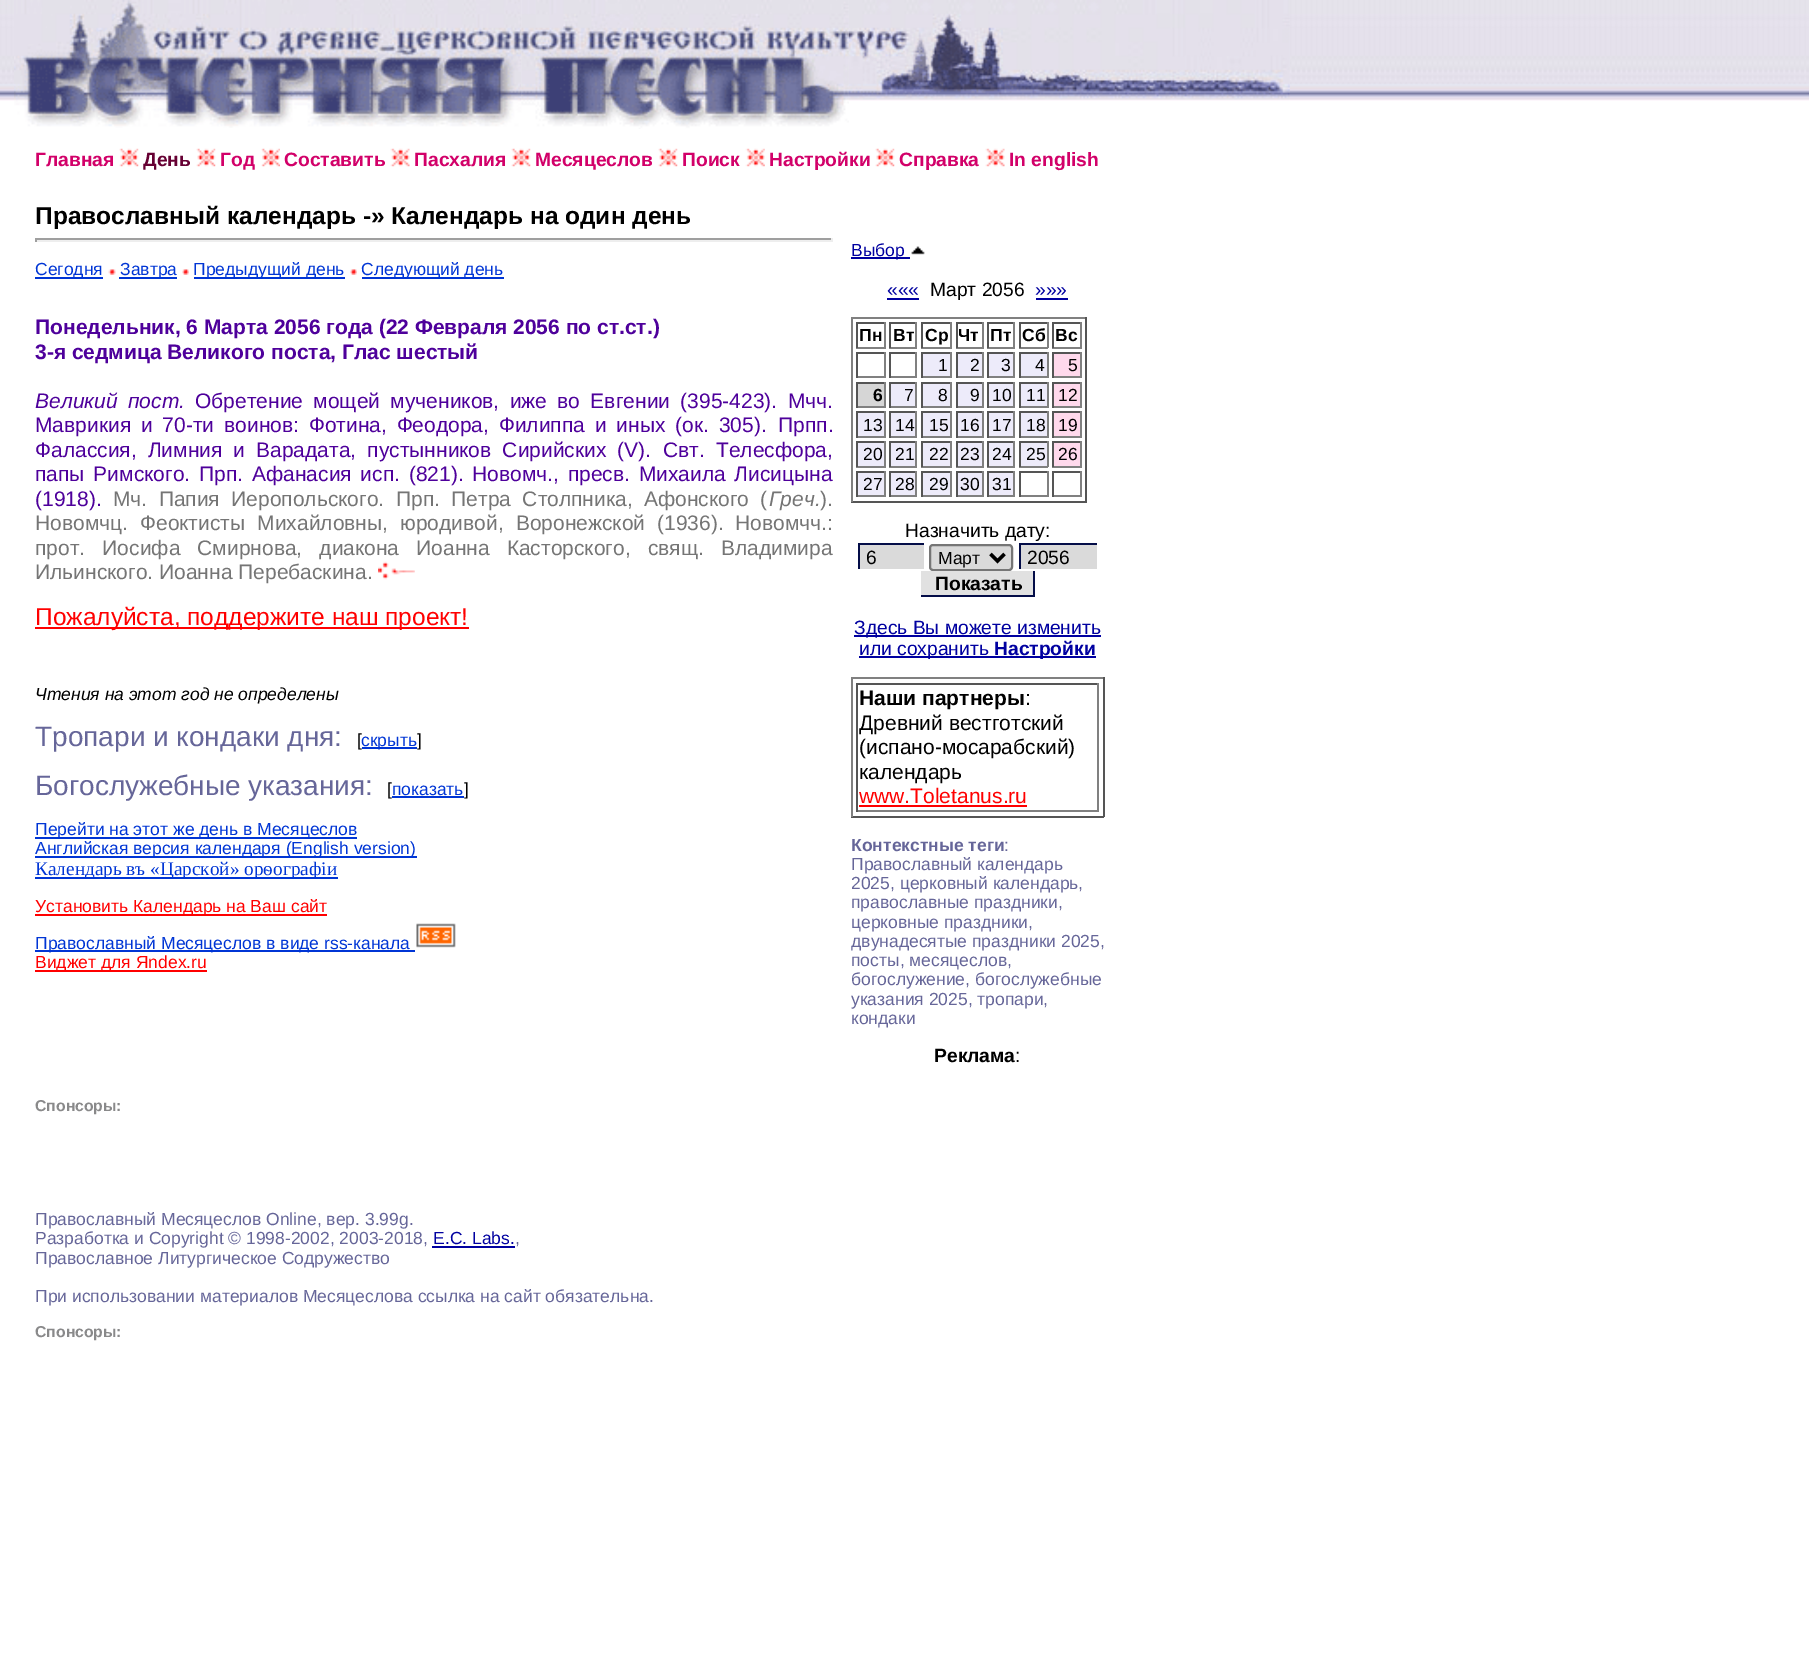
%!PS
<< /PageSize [1809 1660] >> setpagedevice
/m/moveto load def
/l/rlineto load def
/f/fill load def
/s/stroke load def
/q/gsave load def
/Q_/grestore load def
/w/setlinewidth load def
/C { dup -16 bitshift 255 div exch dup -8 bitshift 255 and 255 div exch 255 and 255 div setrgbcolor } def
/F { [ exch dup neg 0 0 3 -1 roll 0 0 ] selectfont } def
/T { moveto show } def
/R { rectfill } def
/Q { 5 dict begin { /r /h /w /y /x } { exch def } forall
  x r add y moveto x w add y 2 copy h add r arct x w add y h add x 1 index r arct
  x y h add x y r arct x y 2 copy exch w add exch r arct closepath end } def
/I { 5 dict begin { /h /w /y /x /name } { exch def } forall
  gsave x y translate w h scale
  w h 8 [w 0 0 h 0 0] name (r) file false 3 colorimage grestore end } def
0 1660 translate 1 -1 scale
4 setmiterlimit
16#FFFFFF C
0 0 1809 1660 R
(1.rgb) 0 0 14 101 I
(2.rgb) 521 0 1 101 I
(4.rgb) 521 0 328 101 I
(3.rgb) 14 0 508 128 I
(6.rgb) 848 0 442 101 I
(5.rgb) 521 0 328 129 I
(8.rgb) 1289 0 520 101 I
(7.rgb) 848 0 442 100 I
/LiberationSans-Bold 19.25 F
16#D20069 C
(Главная) 35 166 T
(9.rgb) 119 148 20 19 I
16#660033 C
(День) 143 166 T
(10.rgb) 196 148 20 19 I
16#D20069 C
(Год) 220 166 T
(11.rgb) 261 148 19 19 I
(Составить) 284 166 T
(12.rgb) 390 148 20 19 I
(Пасхалия) 414 166 T
(13.rgb) 511 148 20 19 I
(Месяцеслов) 535 166 T
(9.rgb) 658 148 20 19 I
(Поиск) 682 166 T
(14.rgb) 745 148 20 19 I
(Настройки) 769 166 T
(10.rgb) 875 148 20 19 I
(Справка) 899 166 T
(12.rgb) 985 148 20 19 I
(In english) 1009 166 T
/LiberationSans-Bold 24.5 F
16#000000 C
(Православный календарь -» Календарь на один день) 35 224 T
16#9F9F9F C
35 238 798 2 R
16#EEEEEE C
831 238 2 4 R
35 240 798 2 R
16#9F9F9F C
35 238 2 4 R
16#0035D5 C
35 277 68 2 R
/LiberationSans-Regular 17.5 F
(Сегодня) 35 275 T
(15.rgb) 108 269 8 6 I
119 277 58 2 R
(Завтра) 120 275 T
(16.rgb) 182 269 7 6 I
194 277 151 2 R
(Предыдущий день) 193 275 T
(16.rgb) 350 269 7 6 I
362 277 142 2 R
(Следующий день) 361 275 T
/LiberationSans-Bold 21 F
16#4E009B C
(Понедельник, 6 Марта 2056 года \(22 Февраля 2056 по ст.ст.\)) 35 334 T
(3-я седмица Великого поста, Глас шестый) 35 359 T
/LiberationSans-Italic 21 F
35 408 m 4.5 0 32 (Великий пост.) widthshow
/LiberationSans-Regular 21 F
195 408 m 4.5 0 32 (Обретение мощей мучеников, иже во Евгении \(395-423\).) widthshow
(Мчч.) 788 408 T
35 432 m 4 0 32 (Маврикия и 70-ти воинов: Фотина, Феодора, Филиппа и иных \(ок. 305\).) widthshow
(Прпп.) 778 432 T
35 457 m 5.25 0 32 (Фалассия, Лимния и Варадата, пустынников Сирийских \(V\).) widthshow
663 457 m 5.25 0 32 (Свт. Телесфора,) widthshow
35 481 m 3 0 32 (папы Римского.) widthshow
199 481 m 3 0 32 (Прп. Афанасия исп. \(821\).) widthshow
472 481 m 3 0 32 (Новомч., пресв. Михаила Лисицына) widthshow
(\(1918\).) 35 506 T
16#757575 C
113 506 m 5.5 0 32 (Мч. Папия Иеропольского.) widthshow
396 506 m 5.5 0 32 (Прп. Петра Столпника, Афонского \() widthshow
/LiberationSans-Italic 21 F
(Греч.) 769 506 T
/LiberationSans-Regular 21 F
(\).) 820 506 T
35 530 m 6.25 0 32 (Новомчц. Феоктисты Михайловны, юродивой, Воронежской \(1936\).) widthshow
(Новомчч.:) 735 530 T
35 555 m 11.25 0 32 (прот. Иосифа Смирнова, диакона Иоанна Касторского, свящ. Владимира) widthshow
(Ильинского. Иоанна Перебаскина.) 35 579 T
(17.rgb) 378 561 37 19 I
16#FF0000 C
35 627 434 2 R
/LiberationSans-Regular 24.5 F
(Пожалуйста, поддержите наш проект!) 35 625 T
/LiberationSans-Italic 17.5 F
16#000000 C
(Чтения на этот год не определены) 35 700 T
/LiberationSans-Regular 28 F
16#666699 C
(Тропари и кондаки дня:) 35 746 T
/LiberationSans-Regular 17.5 F
16#000000 C
([) 357 746 T
16#0035D5 C
362 747 55 2 R
(скрыть) 361 746 T
16#000000 C
(]) 417 746 T
/LiberationSans-Regular 28 F
16#666699 C
(Богослужебные указания:) 35 795 T
/LiberationSans-Regular 17.5 F
16#000000 C
([) 387 795 T
16#0035D5 C
(показать) 392 795 T
392 796 72 2 R
16#000000 C
(]) 464 795 T
16#0035D5 C
35 837 322 2 R
(Перейти на этот же день в Месяцеслов) 35 835 T
35 856 382 2 R
(Английская версия календаря \(English version\)) 35 854 T
35 877 303 2 R
/LiberationSerif-Regular 19.25 F
(Календарь въ «Царской» орѳографiи) 35 875 T
16#FF0000 C
35 914 292 2 R
/LiberationSans-Regular 17.5 F
(Установить Календарь на Ваш сайт) 35 912 T
16#0035D5 C
35 950 380 2 R
(Православный Месяцеслов в виде rss-канала) 35 949 T
(18.rgb) 416 923 40 25 I
16#FF0000 C
35 970 172 2 R
(Виджет для Яndex.ru) 35 968 T
16#0000A0 C
851 257 59 2 R
(Выбор) 851 256 T
(19.rgb) 911 246 14 9 I
/LiberationSans-Regular 19.25 F
(«««) 887 296 T
887 298 32 2 R
16#000000 C
(Март 2056) 930 296 T
16#0000A0 C
(»»») 1035 296 T
1036 298 32 2 R
16#808080 C
851 317 236 2 R
16#555555 C
1085 317 2 185 R
851 501 236 2 R
16#808080 C
851 317 2 185 R
16#555555 C
856 322 30 2 R
16#808080 C
884 322 2 26 R
856 347 30 2 R
16#555555 C
856 322 2 26 R
/LiberationSans-Bold 17.5 F
16#000000 C
(Пн) 859 341 T
16#555555 C
889 322 28 2 R
16#808080 C
915 322 2 26 R
889 347 28 2 R
16#555555 C
889 322 2 26 R
16#000000 C
(Вт) 893 341 T
16#555555 C
921 322 31 2 R
16#808080 C
950 322 2 26 R
921 347 31 2 R
16#555555 C
921 322 2 26 R
16#000000 C
(Ср) 925 341 T
16#555555 C
956 322 28 2 R
16#808080 C
982 322 2 26 R
956 347 28 2 R
16#555555 C
956 322 2 26 R
16#000000 C
(Чт) 958 341 T
16#555555 C
987 322 28 2 R
16#808080 C
1013 322 2 26 R
987 347 28 2 R
16#555555 C
987 322 2 26 R
16#000000 C
(Пт) 990 341 T
16#555555 C
1019 322 29 2 R
16#808080 C
1047 322 2 26 R
1019 347 29 2 R
16#555555 C
1019 322 2 26 R
16#000000 C
(Сб) 1022 341 T
16#555555 C
1052 322 30 2 R
16#808080 C
1080 322 2 26 R
1052 347 30 2 R
16#555555 C
1052 322 2 26 R
16#000000 C
(Вс) 1055 341 T
16#555555 C
856 352 30 2 R
16#808080 C
884 352 2 26 R
856 376 30 2 R
16#555555 C
856 352 2 26 R
889 352 28 2 R
16#808080 C
915 352 2 26 R
889 376 28 2 R
16#555555 C
889 352 2 26 R
16#EDEBFA C
923 354 27 22 R
16#555555 C
921 352 31 2 R
16#808080 C
950 352 2 26 R
921 376 31 2 R
16#555555 C
921 352 2 26 R
/LiberationSans-Regular 17.5 F
16#000000 C
(1) 938 371 T
16#EDEBFA C
958 354 24 22 R
16#555555 C
956 352 28 2 R
16#808080 C
982 352 2 26 R
956 376 28 2 R
16#555555 C
956 352 2 26 R
16#000000 C
(2) 970 371 T
16#EDEBFA C
989 354 24 22 R
16#555555 C
987 352 28 2 R
16#808080 C
1013 352 2 26 R
987 376 28 2 R
16#555555 C
987 352 2 26 R
16#000000 C
(3) 1001 371 T
16#EDEBFA C
1021 354 26 22 R
16#555555 C
1019 352 29 2 R
16#808080 C
1047 352 2 26 R
1019 376 29 2 R
16#555555 C
1019 352 2 26 R
16#000000 C
(4) 1035 371 T
16#FFD9EC C
1054 354 26 22 R
16#555555 C
1052 352 30 2 R
16#808080 C
1080 352 2 26 R
1052 376 30 2 R
16#555555 C
1052 352 2 26 R
16#000000 C
(5) 1068 371 T
16#D6D6D6 C
858 384 26 22 R
16#555555 C
856 382 30 2 R
16#808080 C
884 382 2 26 R
856 406 30 2 R
16#555555 C
856 382 2 26 R
/LiberationSans-Bold 17.5 F
16#000000 C
(6) 873 401 T
16#EDEBFA C
891 384 24 22 R
16#555555 C
889 382 28 2 R
16#808080 C
915 382 2 26 R
889 406 28 2 R
16#555555 C
889 382 2 26 R
/LiberationSans-Regular 17.5 F
16#000000 C
(7) 904 401 T
16#EDEBFA C
923 384 27 22 R
16#555555 C
921 382 31 2 R
16#808080 C
950 382 2 26 R
921 406 31 2 R
16#555555 C
921 382 2 26 R
16#000000 C
(8) 938 401 T
16#EDEBFA C
958 384 24 22 R
16#555555 C
956 382 28 2 R
16#808080 C
982 382 2 26 R
956 406 28 2 R
16#555555 C
956 382 2 26 R
16#000000 C
(9) 970 401 T
16#EDEBFA C
989 384 24 22 R
16#555555 C
987 382 28 2 R
16#808080 C
1013 382 2 26 R
987 406 28 2 R
16#555555 C
987 382 2 26 R
16#000000 C
(10) 992 401 T
16#EDEBFA C
1021 384 26 22 R
16#555555 C
1019 382 29 2 R
16#808080 C
1047 382 2 26 R
1019 406 29 2 R
16#555555 C
1019 382 2 26 R
16#000000 C
(11) 1026 401 T
16#FFD9EC C
1054 384 26 22 R
16#555555 C
1052 382 30 2 R
16#808080 C
1080 382 2 26 R
1052 406 30 2 R
16#555555 C
1052 382 2 26 R
16#000000 C
(12) 1058 401 T
16#EDEBFA C
858 413 26 23 R
16#555555 C
856 411 30 2 R
16#808080 C
884 411 2 27 R
856 436 30 2 R
16#555555 C
856 411 2 27 R
16#000000 C
(13) 863 431 T
16#EDEBFA C
891 413 24 23 R
16#555555 C
889 411 28 2 R
16#808080 C
915 411 2 27 R
889 436 28 2 R
16#555555 C
889 411 2 27 R
16#000000 C
(14) 895 431 T
16#EDEBFA C
923 413 27 23 R
16#555555 C
921 411 31 2 R
16#808080 C
950 411 2 27 R
921 436 31 2 R
16#555555 C
921 411 2 27 R
16#000000 C
(15) 929 431 T
16#EDEBFA C
958 413 24 23 R
16#555555 C
956 411 28 2 R
16#808080 C
982 411 2 27 R
956 436 28 2 R
16#555555 C
956 411 2 27 R
16#000000 C
(16) 960 431 T
16#EDEBFA C
989 413 24 23 R
16#555555 C
987 411 28 2 R
16#808080 C
1013 411 2 27 R
987 436 28 2 R
16#555555 C
987 411 2 27 R
16#000000 C
(17) 992 431 T
16#EDEBFA C
1021 413 26 23 R
16#555555 C
1019 411 29 2 R
16#808080 C
1047 411 2 27 R
1019 436 29 2 R
16#555555 C
1019 411 2 27 R
16#000000 C
(18) 1026 431 T
16#FFD9EC C
1054 413 26 23 R
16#555555 C
1052 411 30 2 R
16#808080 C
1080 411 2 27 R
1052 436 30 2 R
16#555555 C
1052 411 2 27 R
16#000000 C
(19) 1058 431 T
16#EDEBFA C
858 443 26 23 R
16#555555 C
856 441 30 2 R
16#808080 C
884 441 2 26 R
856 466 30 2 R
16#555555 C
856 441 2 26 R
16#000000 C
(20) 863 460 T
16#EDEBFA C
891 443 24 23 R
16#555555 C
889 441 28 2 R
16#808080 C
915 441 2 26 R
889 466 28 2 R
16#555555 C
889 441 2 26 R
16#000000 C
(21) 895 460 T
16#EDEBFA C
923 443 27 23 R
16#555555 C
921 441 31 2 R
16#808080 C
950 441 2 26 R
921 466 31 2 R
16#555555 C
921 441 2 26 R
16#000000 C
(22) 929 460 T
16#EDEBFA C
958 443 24 23 R
16#555555 C
956 441 28 2 R
16#808080 C
982 441 2 26 R
956 466 28 2 R
16#555555 C
956 441 2 26 R
16#000000 C
(23) 960 460 T
16#EDEBFA C
989 443 24 23 R
16#555555 C
987 441 28 2 R
16#808080 C
1013 441 2 26 R
987 466 28 2 R
16#555555 C
987 441 2 26 R
16#000000 C
(24) 992 460 T
16#EDEBFA C
1021 443 26 23 R
16#555555 C
1019 441 29 2 R
16#808080 C
1047 441 2 26 R
1019 466 29 2 R
16#555555 C
1019 441 2 26 R
16#000000 C
(25) 1026 460 T
16#FFD9EC C
1054 443 26 23 R
16#555555 C
1052 441 30 2 R
16#808080 C
1080 441 2 26 R
1052 466 30 2 R
16#555555 C
1052 441 2 26 R
16#000000 C
(26) 1058 460 T
16#EDEBFA C
858 473 26 22 R
16#555555 C
856 471 30 2 R
16#808080 C
884 471 2 26 R
856 495 30 2 R
16#555555 C
856 471 2 26 R
16#000000 C
(27) 863 490 T
16#EDEBFA C
891 473 24 22 R
16#555555 C
889 471 28 2 R
16#808080 C
915 471 2 26 R
889 495 28 2 R
16#555555 C
889 471 2 26 R
16#000000 C
(28) 895 490 T
16#EDEBFA C
923 473 27 22 R
16#555555 C
921 471 31 2 R
16#808080 C
950 471 2 26 R
921 495 31 2 R
16#555555 C
921 471 2 26 R
16#000000 C
(29) 929 490 T
16#EDEBFA C
958 473 24 22 R
16#555555 C
956 471 28 2 R
16#808080 C
982 471 2 26 R
956 495 28 2 R
16#555555 C
956 471 2 26 R
16#000000 C
(30) 960 490 T
16#EDEBFA C
989 473 24 22 R
16#555555 C
987 471 28 2 R
16#808080 C
1013 471 2 26 R
987 495 28 2 R
16#555555 C
987 471 2 26 R
16#000000 C
(31) 992 490 T
16#555555 C
1019 471 29 2 R
16#808080 C
1047 471 2 26 R
1019 495 29 2 R
16#555555 C
1019 471 2 26 R
1052 471 30 2 R
16#808080 C
1080 471 2 26 R
1052 495 30 2 R
16#555555 C
1052 471 2 26 R
/LiberationSans-Regular 19.25 F
16#000000 C
(Назначить дату:) 905 537 T
16#DADADA C
860 545 64 24 R
16#040D48 C
858 543 66 2 R
858 543 2 26 R
16#000000 C
(6) 866 564 T
16#DADADA C
930 545 82 25 3 Q q f Q_
16#767676 C
2 w
s
16#000000 C
3.5 w
990.5 554 m 7 7 l 7 -7 l s
/LiberationSans-Regular 17.5 F
(Март) 938 564 T
16#DADADA C
1021 545 76 24 R
16#040D48 C
1019 543 78 2 R
1019 543 2 26 R
/LiberationSans-Regular 19.25 F
16#000000 C
(2056) 1027 564 T
16#E1E1E1 C
921 571 112 24 R
16#040D48 C
1033 571 2 26 R
921 595 113 2 R
/LiberationSans-Bold 19.25 F
16#000000 C
(Показать) 935 590 T
16#0000A0 C
854 635 247 2 R
/LiberationSans-Regular 19.25 F
(Здесь Вы можете изменить) 854 634 T
859 656 237 2 R
(или сохранить) 859 655 T
/LiberationSans-Bold 19.25 F
(Настройки) 994 655 T
16#808080 C
851 677 253 2 R
16#555555 C
1103 677 2 140 R
851 816 253 2 R
16#808080 C
851 677 2 140 R
16#555555 C
856 683 243 2 R
16#808080 C
1097 683 2 129 R
856 810 243 2 R
16#555555 C
856 683 2 129 R
/LiberationSans-Bold 21 F
16#000000 C
(Наши партнеры) 859 705 T
/LiberationSans-Regular 21 F
(:) 1025 705 T
(Древний вестготский) 859 730 T
(\(испано-мосарабский\)) 859 754 T
(календарь) 859 779 T
16#FF0000 C
(www.Toletanus.ru) 859 803 T
859 805 168 2 R
/LiberationSans-Bold 17.5 F
16#666699 C
(Контекстные теги) 851 851 T
/LiberationSans-Regular 17.5 F
(:) 1004 851 T
(Православный календарь) 851 870 T
(2025, церковный календарь,) 851 889 T
(православные праздники,) 851 908 T
(церковные праздники,) 851 928 T
(двунадесятые праздники 2025,) 851 947 T
(посты, месяцеслов,) 851 966 T
(богослужение, богослужебные) 851 985 T
(указания 2025, тропари,) 851 1005 T
(кондаки) 851 1024 T
/LiberationSans-Bold 19.25 F
16#000000 C
(Реклама) 934 1062 T
/LiberationSans-Regular 19.25 F
(:) 1015 1062 T
/LiberationSans-Bold 15.75 F
16#89898A C
(Спонсоры:) 35 1111 T
/LiberationSans-Regular 17.5 F
16#666699 C
(Православный Месяцеслов Online, вер. 3.99g.) 35 1225 T
(Разработка и Copyright © 1998-2002, 2003-2018,) 35 1244 T
16#0000A0 C
(E.C. Labs.) 433 1244 T
16#666699 C
(,) 515 1244 T
16#0000A0 C
432 1246 83 2 R
16#666699 C
(Православное Литургическое Содружество) 35 1264 T
(При использовании материалов Месяцеслова ссылка на сайт обязательна.) 35 1302 T
/LiberationSans-Bold 15.75 F
16#89898A C
(Спонсоры:) 35 1337 T
showpage
